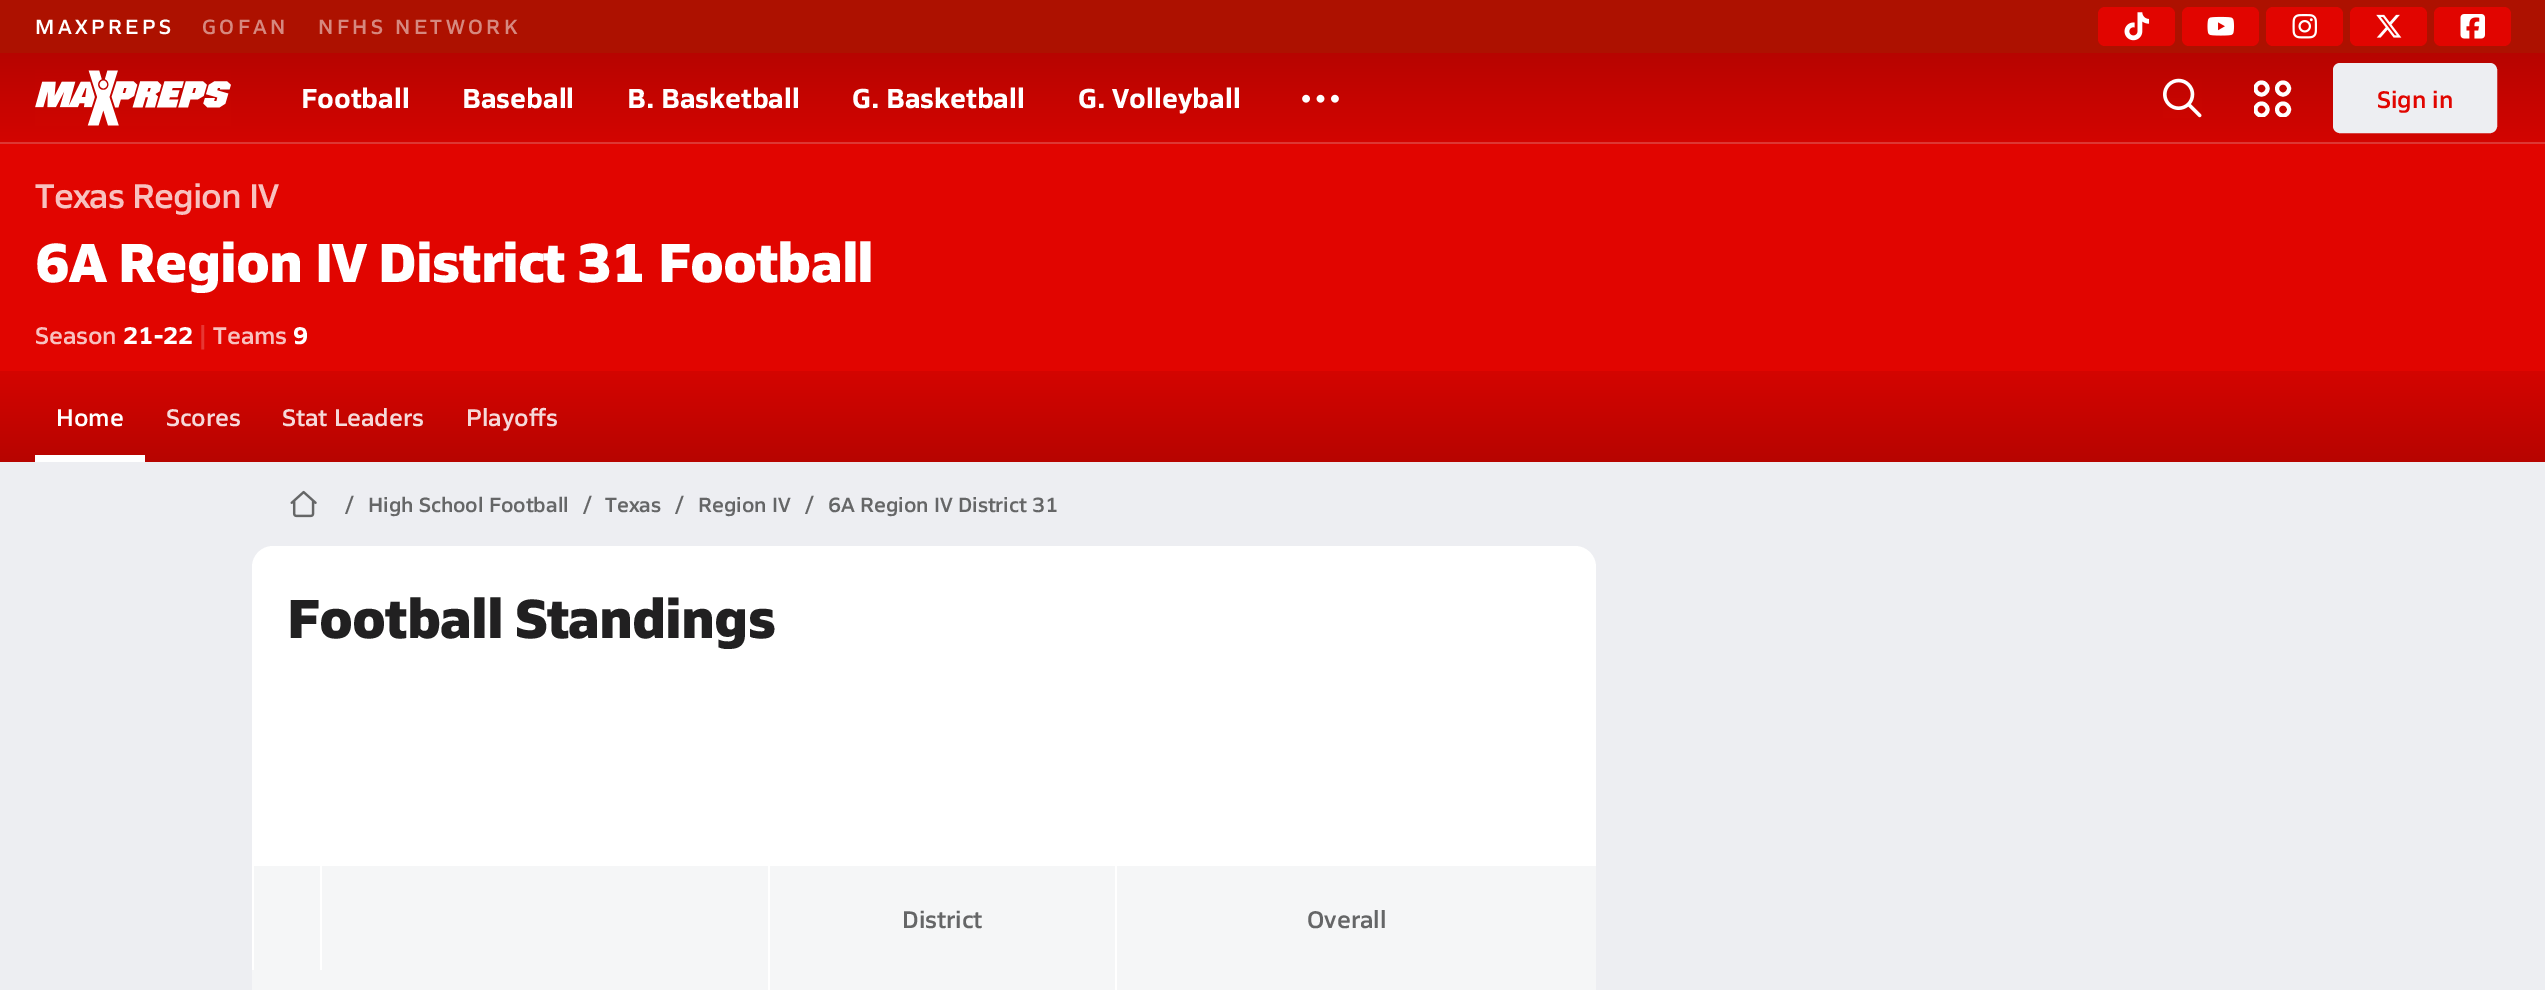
%!PS
<< /PageSize [2545 990] >> setpagedevice
/m/moveto load def
/l/rlineto load def
/z/closepath load def
/f/fill load def
/s/stroke load def
/q/gsave load def
/Q_/grestore load def
/w/setlinewidth load def
/C { dup -16 bitshift 255 div exch dup -8 bitshift 255 and 255 div exch 255 and 255 div setrgbcolor } def
/F { [ exch dup neg 0 0 3 -1 roll 0 0 ] selectfont } def
/T { moveto show } def
/R { rectfill } def
/O { newpath 0 360 arc closepath } def
/Q { 5 dict begin { /r /h /w /y /x } { exch def } forall
  x r add y moveto x w add y 2 copy h add r arct x w add y h add x 1 index r arct
  x y h add x y r arct x y 2 copy exch w add exch r arct closepath end } def
/I { 5 dict begin { /h /w /y /x /name } { exch def } forall
  gsave x y translate w h scale
  w h 8 [w 0 0 h 0 0] name (r) file false 3 colorimage grestore end } def
0 990 translate 1 -1 scale
4 setmiterlimit
16#EDEEF2 C
0 0 2545 990 R
16#AD1100 C
0 0 2545 53 R
/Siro-SemiBold 21 F
16#FFFFFF C
35 34 m 3.5 0 (MAXPREPS) ashow
16#D6887F C
202 34 m 3.5 0 (GOFAN) ashow
318 34 m 3.5 0 (NFHS NETWORK) ashow
16#E10500 C
2098 7 77 39 7 Q f
(1.rgb) 2124 12 26 29 I
2182 7 77 39 7 Q f
(2.rgb) 2207 16 28 20 I
2266 7 77 39 7 Q f
(3.rgb) 2292 14 25 25 I
2350 7 77 39 7 Q f
(4.rgb) 2376 14 26 24 I
2434 7 77 39 7 Q f
(5.rgb) 2460 14 25 25 I
q 0 53 m 2545 0 l 0 89 l -2545 0 l z clip newpath
<< /ShadingType 2 /ColorSpace /DeviceRGB /Coords [1273 52 1273 144] /Extend [true true] /Function << /FunctionType 2 /Domain [0 1] /C0 [.718 .016 0] /C1 [.831 .02 0] /N 1 >> >> shfill Q_
(6.rgb) 35 70 196 56 I
/Siro-Bold 28 F
16#FFFFFF C
(Football) 301 108 T
(Baseball) 462 108 T
(B. Basketball) 627 108 T
(G. Basketball) 852 108 T
(G. Volleyball) 1078 108 T
(7.rgb) 1302 94 37 9 I
(8.rgb) 2163 78 39 40 I
q
2254 79 39 38 rectclip
3.9 w
2261.5 88.5 6 O s
Q_
3.9 w
2283 88.5 6 O s
q
2254 79 39 38 rectclip
2261.5 109.5 6 O s
2283 109.5 6 O s
Q_
16#EDEEF2 C
2334 64 162 68 6 Q q f Q_
2 w
s
/Siro-SemiBold 24.5 F
16#E10500 C
(Sign in) 2377 108 T
16#DD3733 C
0 142 2545 2 R
16#E10500 C
0 144 2545 227 R
/Siro-SemiBold 35 F
16#F8C1BF C
35 208 m -.85 0 (Texas Region IV) ashow
/Siro-ExtraBold 56 F
16#FFFFFF C
35 282 m -.85 0 (6A Region IV District 31 Football) ashow
/Siro-SemiBold 24.5 F
16#F8C1BF C
(Season) 35 344 T
/Siro-Bold 24.5 F
16#FFFFFF C
(21-22) 123 344 T
16#E73733 C
(|) 199 344 T
/Siro-SemiBold 24.5 F
16#F8C1BF C
(Teams) 213 344 T
/Siro-Bold 24.5 F
16#FFFFFF C
(9) 293 344 T
q 0 371 m 2545 0 l 0 91 l -2545 0 l z clip newpath
<< /ShadingType 2 /ColorSpace /DeviceRGB /Coords [1273 371 1273 462] /Extend [true true] /Function << /FunctionType 2 /Domain [0 1] /C0 [.831 .02 0] /C1 [.718 .016 0] /N 1 >> >> shfill Q_
/Siro-SemiBold 24.5 F
(Home) 56 426 T
35 455 110 7 R
16#F6D9D9 C
(Scores) 166 426 T
(Stat Leaders) 282 426 T
(Playoffs) 466 426 T
(9.rgb) 290 490 27 28 I
/Siro-SemiBold 21 F
16#656667 C
(/) 345 511 T
(High School Football) 368 512 T
(/) 583 511 T
(Texas) 605 512 T
(/) 675 511 T
(Region IV) 698 512 T
(/) 805 511 T
(6A Region IV District 31) 828 512 T
16#FFFFFF C
252 546 1344 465 21 Q f
/Siro-ExtraBold 56 F
16#212021 C
287 638 m -.85 0 (Football Standings) ashow
16#F5F6F7 C
254 866 66 104 R
322 866 446 104 R
770 866 345 104 R
/Siro-SemiBold 24.5 F
16#656667 C
(District) 902 928 T
16#F5F6F7 C
1117 866 479 104 R
16#656667 C
(Overall) 1307 928 T
16#F5F6F7 C
252 970 516 20 R
770 970 345 20 R
1117 970 479 20 R
showpage
